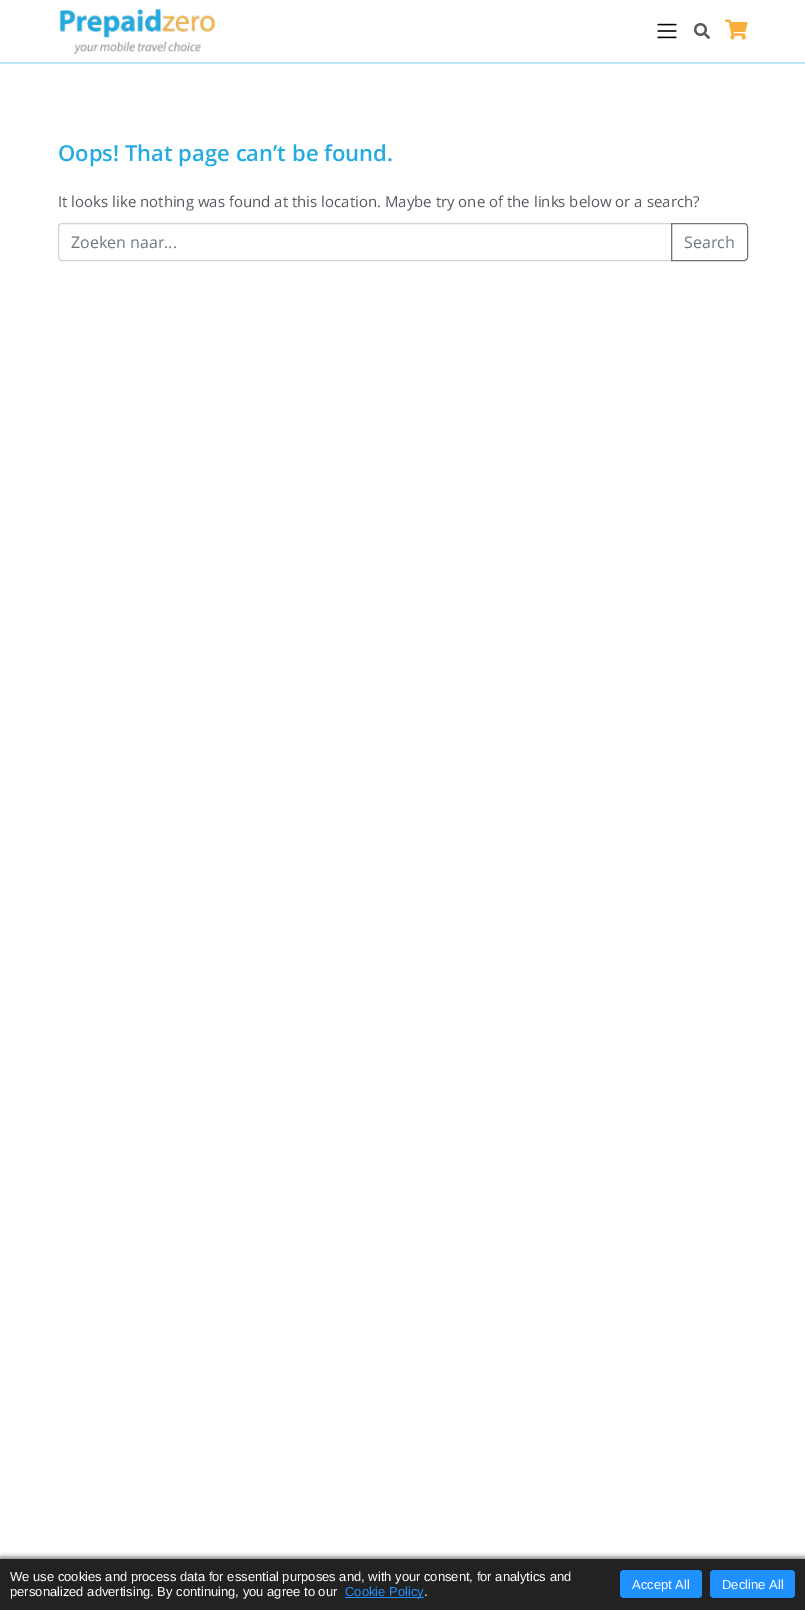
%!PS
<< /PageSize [805 1610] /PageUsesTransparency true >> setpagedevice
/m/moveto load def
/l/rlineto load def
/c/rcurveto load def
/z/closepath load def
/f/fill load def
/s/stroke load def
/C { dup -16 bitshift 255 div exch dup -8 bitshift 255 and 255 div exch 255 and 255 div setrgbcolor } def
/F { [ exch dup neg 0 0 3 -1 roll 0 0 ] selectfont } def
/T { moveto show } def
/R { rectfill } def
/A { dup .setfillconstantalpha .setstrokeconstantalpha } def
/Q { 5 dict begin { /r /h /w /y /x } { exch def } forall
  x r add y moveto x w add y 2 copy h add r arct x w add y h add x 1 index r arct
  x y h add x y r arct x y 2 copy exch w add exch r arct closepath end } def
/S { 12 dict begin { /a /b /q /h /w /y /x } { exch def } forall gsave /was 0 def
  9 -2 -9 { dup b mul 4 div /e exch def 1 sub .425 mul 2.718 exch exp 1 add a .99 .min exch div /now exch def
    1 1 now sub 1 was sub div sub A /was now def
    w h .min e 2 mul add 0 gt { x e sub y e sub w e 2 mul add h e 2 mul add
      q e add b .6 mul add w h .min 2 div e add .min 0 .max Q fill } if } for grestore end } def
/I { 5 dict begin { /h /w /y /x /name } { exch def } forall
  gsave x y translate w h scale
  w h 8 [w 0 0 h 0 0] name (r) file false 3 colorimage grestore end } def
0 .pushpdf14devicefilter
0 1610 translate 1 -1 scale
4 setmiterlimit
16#FFFFFF C
0 0 805 1610 R
16#BDE6F6 C
0 62 805 2 R
(1.rgb) 59 9 157 45 I
(2.rgb) 657 23 20 16 I
(3.rgb) 694 23 16 16 I
(4.rgb) 725 19 23 21 I
/OpenSans-SemiBold 22 F
16#23ABE2 C
(Oops! That page can’t be found.) 58 161 T
/OpenSans-Regular 15 F
16#54595F C
(It looks like nothing was found at this location. Maybe try one of the links below or a search?) 58 207 T
16#CED4DA C
62 223.5 m 609.5 0 l 0 37 l -609.5 0 l -2 0 -3.5 -1.5 -3.5 -3.5 c 0 -30 l 0 -2 1.5 -3.5 3.5 -3.5 c z s
/OpenSans-Regular 16 F
16#6C757D C
(Zoeken naar...) 71 248 T
671.5 223.5 m 72.5 0 l 2 0 3.5 1.5 3.5 3.5 c 0 30 l 0 2 -1.5 3.5 -3.5 3.5 c -72.5 0 l z s
(Search) 684 248 T
16#000000 C
0 1557 805 51 0 2.5 .5 S
16#222222 C
0 1559 805 51 R
/LiberationSans-Regular 13 F
16#FFFFFF C
(We use cookies and process data for essential purposes and, with your consent, for analytics and) 10 1581 T
(personalized advertising. By continuing, you agree to our) 10 1596 T
16#1E90FF C
345 1597 79 1 R
(Cookie Policy) 345 1596 T
16#FFFFFF C
(.) 424 1596 T
16#1E90FF C
620 1570 82 28 4 Q f
16#FFFFFF C
(Accept All) 632 1589 T
16#1E90FF C
710 1570 85 28 4 Q f
16#FFFFFF C
(Decline All) 722 1589 T
.poppdf14devicefilter showpage
